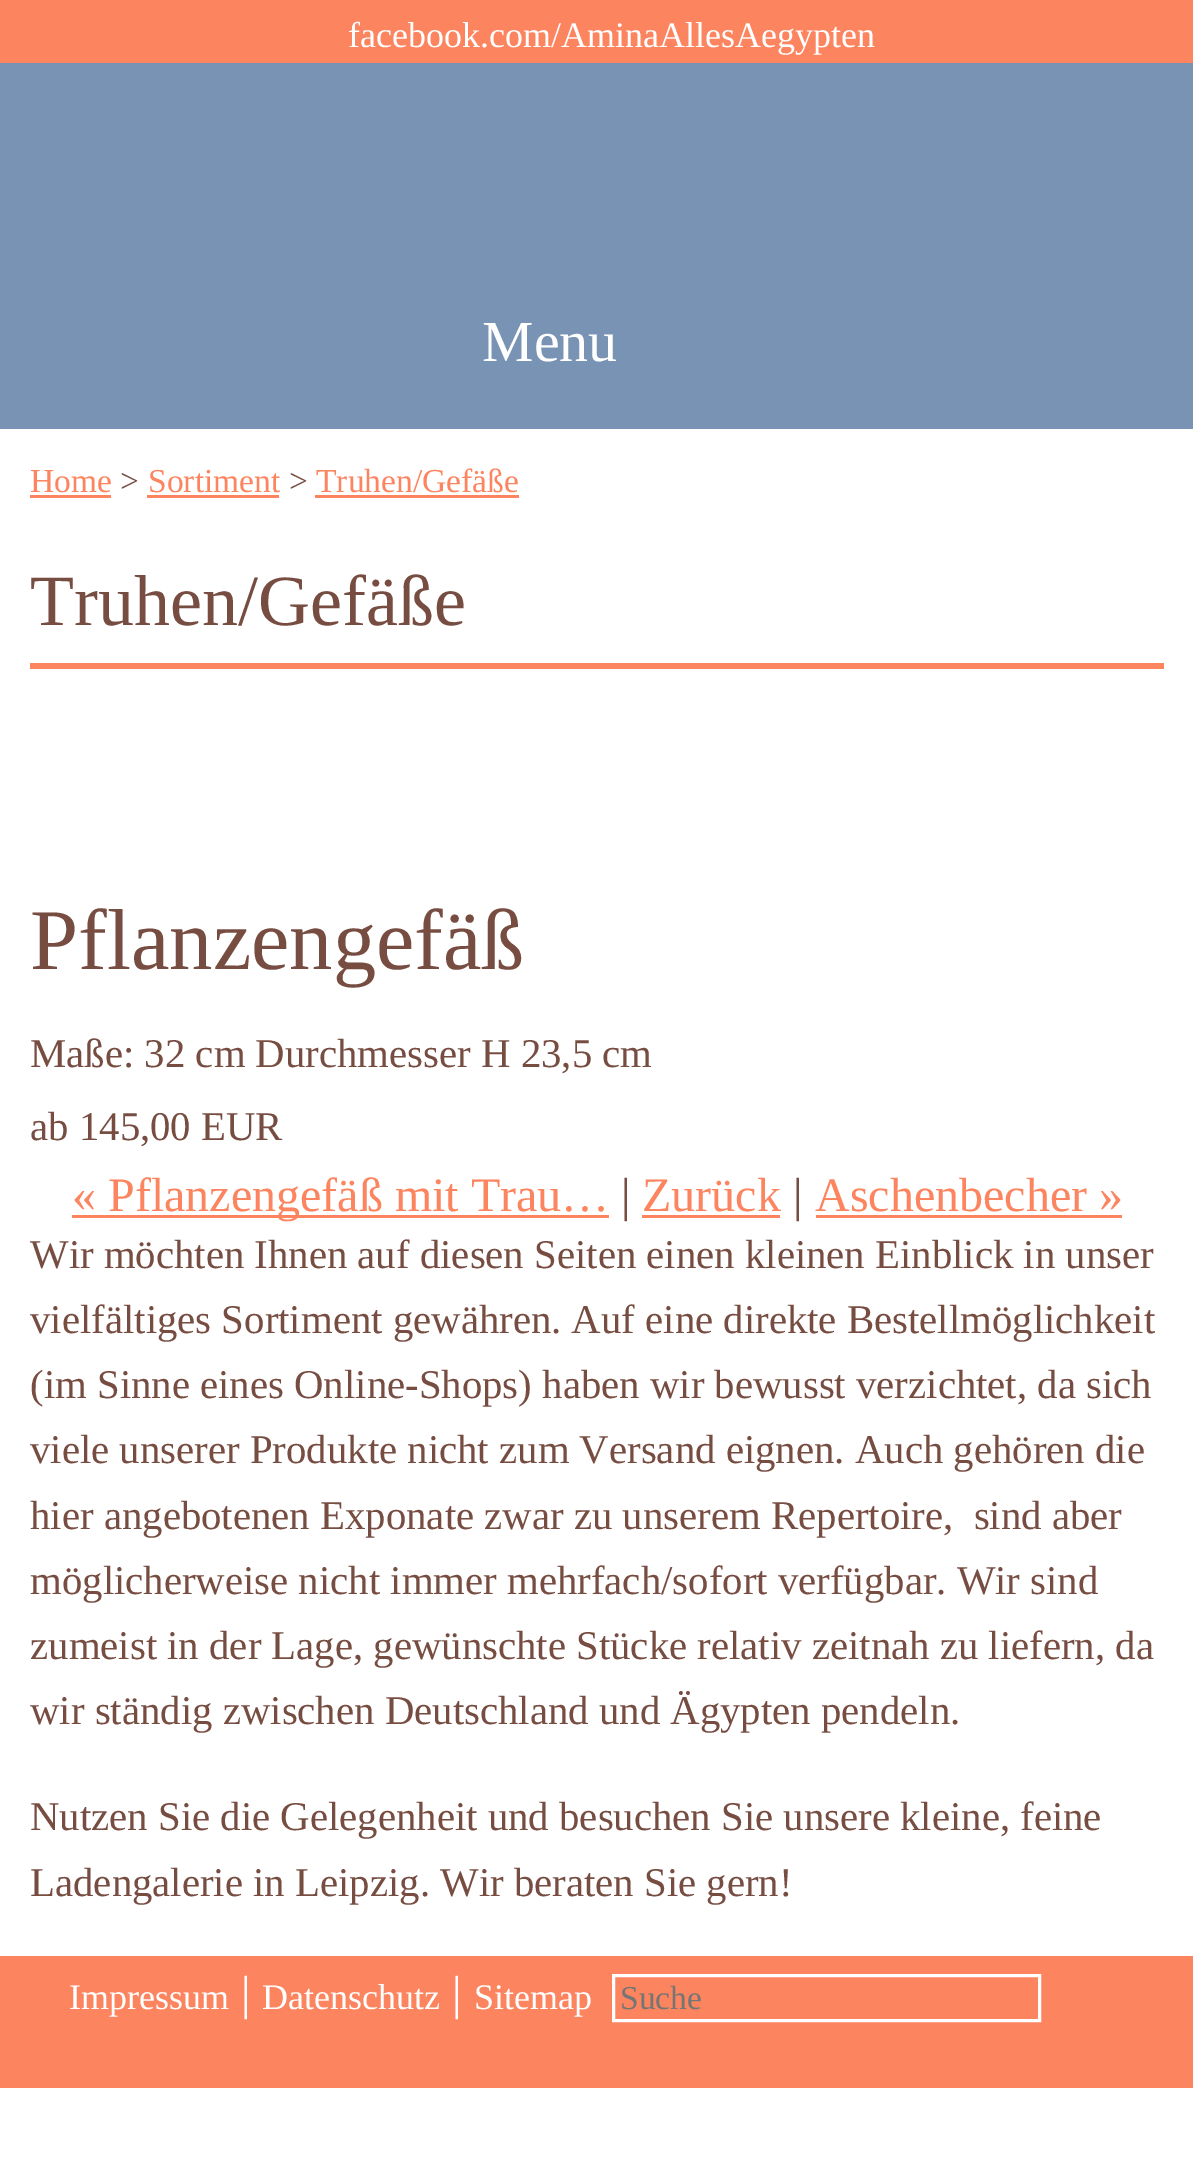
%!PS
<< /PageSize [1193 2158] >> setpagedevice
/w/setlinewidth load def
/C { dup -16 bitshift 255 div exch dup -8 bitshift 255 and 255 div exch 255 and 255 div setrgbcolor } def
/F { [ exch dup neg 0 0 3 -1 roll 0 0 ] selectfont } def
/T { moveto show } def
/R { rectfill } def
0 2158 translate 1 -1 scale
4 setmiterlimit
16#FFFFFF C
0 0 1193 2158 R
16#FC845F C
0 0 1193 63 R
/LiberationSerif-Regular 36 F
16#FFFFFF C
(facebook.com/AminaAllesAegypten) 348 47 T
16#7993B4 C
0 63 1193 366 R
/LiberationSerif-Regular 58 F
16#FFFFFF C
(Menu) 482 361 T
/LiberationSerif-Regular 33.5 F
16#FC845F C
(Home) 30 492 T
30 495 81 3 R
16#774D42 C
(>) 120 492 T
16#FC845F C
(Sortiment) 148 492 T
147 495 132 3 R
16#774D42 C
(>) 289 492 T
16#FC845F C
(Truhen/Gefäße) 316 492 T
315 495 204 3 R
30 663 1134 6 R
/LiberationSerif-Regular 72 F
16#774D42 C
(Truhen/Gefäße) 30 625 T
/LiberationSerif-Regular 86.5 F
(Pflanzengefäß) 30 969 T
/LiberationSerif-Regular 40.8 F
(Maße: 32 cm Durchmesser H 23,5 cm) 30 1067 T
(ab 145,00 EUR) 30 1140 T
16#FC845F C
72 1215 537 3 R
/LiberationSerif-Regular 48 F
(« Pflanzengefäß mit Trau…) 72 1211 T
16#774D42 C
(|) 621 1211 T
16#FC845F C
(Zurück) 642 1211 T
642 1215 138 3 R
16#774D42 C
(|) 793 1211 T
16#FC845F C
(Aschenbecher ») 815 1211 T
816 1215 306 3 R
/LiberationSerif-Regular 40.8 F
16#774D42 C
(Wir möchten Ihnen auf diesen Seiten einen kleinen Einblick in unser) 30 1268 T
(vielfältiges Sortiment gewähren. Auf eine direkte Bestellmöglichkeit) 30 1333 T
(\(im Sinne eines Online-Shops\) haben wir bewusst verzichtet, da sich) 30 1398 T
(viele unserer Produkte nicht zum Versand eignen. Auch gehören die) 30 1463 T
(hier angebotenen Exponate zwar zu unserem Repertoire,  sind aber) 30 1529 T
(möglicherweise nicht immer mehrfach/sofort verfügbar. Wir sind) 30 1594 T
(zumeist in der Lage, gewünschte Stücke relativ zeitnah zu liefern, da) 30 1659 T
(wir ständig zwischen Deutschland und Ägypten pendeln.) 30 1724 T
(Nutzen Sie die Gelegenheit und besuchen Sie unsere kleine, feine) 30 1830 T
(Ladengalerie in Leipzig. Wir beraten Sie gern!) 30 1896 T
16#FC845F C
0 1956 1193 132 R
/LiberationSerif-Regular 36 F
16#FFFFFF C
(Impressum) 69 2009 T
/LiberationSerif-Regular 48 F
(|) 241 2009 T
/LiberationSerif-Regular 36 F
(Datenschutz) 262 2009 T
/LiberationSerif-Regular 48 F
(|) 452 2009 T
/LiberationSerif-Regular 36 F
(Sitemap) 474 2009 T
3 w
613.5 1975.5 426 45 rectstroke
/LiberationSerif-Regular 33.5 F
16#757575 C
(Suche) 620 2009 T
showpage
